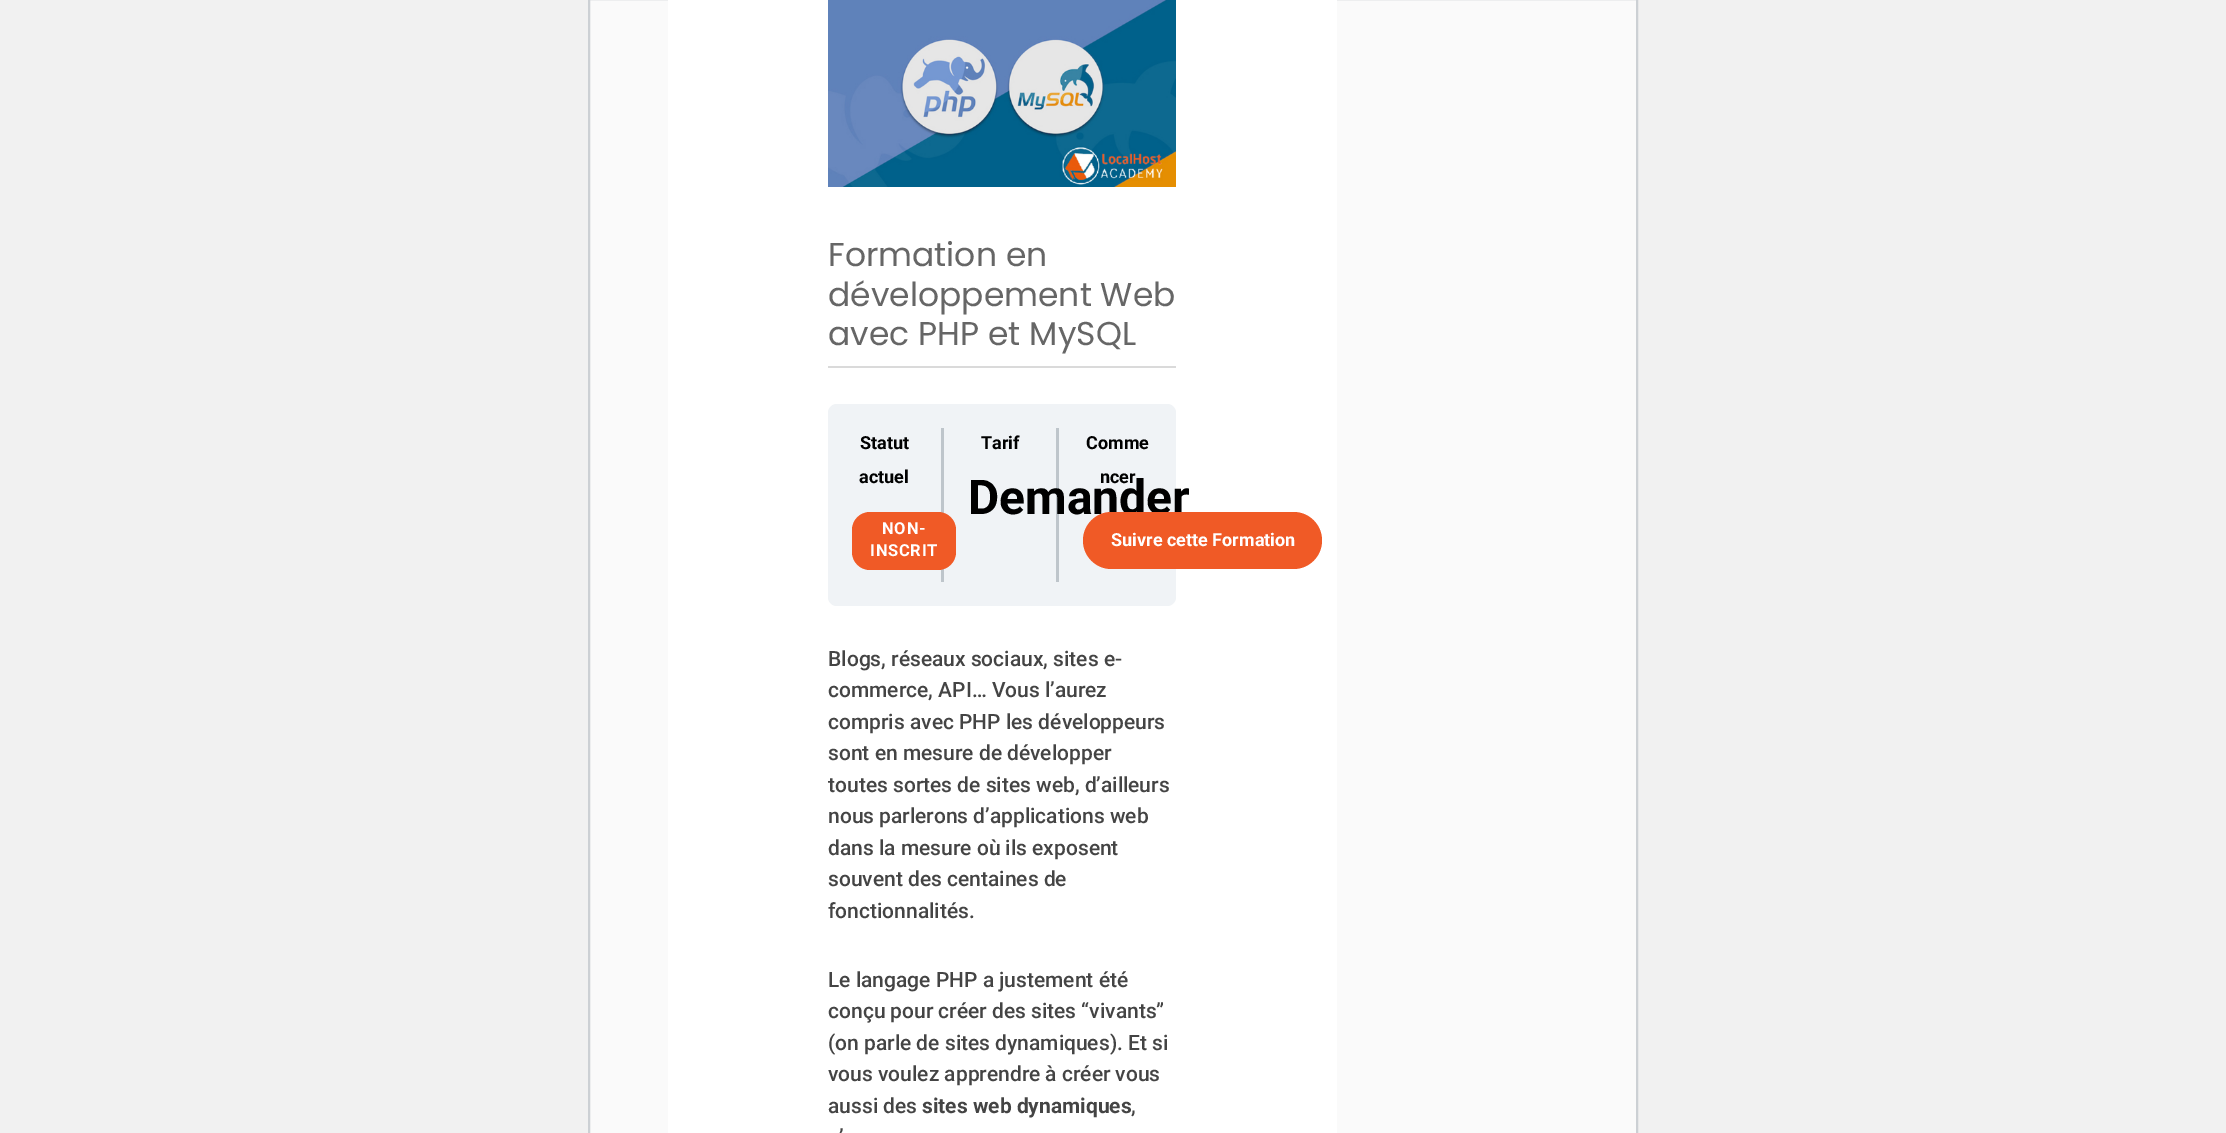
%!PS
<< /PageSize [2226 1133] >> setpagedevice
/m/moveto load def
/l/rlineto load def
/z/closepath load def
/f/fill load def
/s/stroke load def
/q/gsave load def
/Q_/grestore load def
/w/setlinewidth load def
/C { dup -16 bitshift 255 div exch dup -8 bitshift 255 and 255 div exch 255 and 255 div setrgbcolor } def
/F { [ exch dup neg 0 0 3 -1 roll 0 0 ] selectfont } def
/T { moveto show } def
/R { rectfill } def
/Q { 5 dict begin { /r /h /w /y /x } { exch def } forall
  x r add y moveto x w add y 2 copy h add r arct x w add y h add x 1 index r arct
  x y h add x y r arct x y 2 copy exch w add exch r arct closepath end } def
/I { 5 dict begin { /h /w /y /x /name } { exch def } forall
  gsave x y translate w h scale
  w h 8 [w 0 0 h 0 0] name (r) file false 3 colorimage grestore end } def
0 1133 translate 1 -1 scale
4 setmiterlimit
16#F1F1F1 C
0 0 2226 1133 R
16#FAFAFA C
589 -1 m 1048 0 l 0 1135 l -1048 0 l z q f Q_
16#CCD0D4 C
2 w
s
16#FFFFFF C
668 0 669 1133 R
(1.rgb) 828 0 348 187 I
16#DADADA C
828 366 348 2 R
/Poppins-Regular 33 F
16#666666 C
(Formation en) 828 266 T
(développement Web) 828 306 T
(avec PHP et MySQL) 828 345 T
16#F0F3F6 C
828 404 348 202 9 Q f
16#BEC5CB C
941 428 3 154 R
/Roboto-Bold 18 F
16#000000 C
(Statut) 860 449 T
(actuel) 859 483 T
16#F05A26 C
852 512 104 58 18 Q f
/Roboto-Bold 16.5 F
16#FFFFFF C
882 534 m .75 0 (NON-) ashow
870 556 m .75 0 (INSCRIT) ashow
16#BEC5CB C
1056 428 3 154 R
/Roboto-Bold 18 F
16#000000 C
(Tarif) 981 449 T
/Roboto-Bold 48 F
(Demander) 968 514 T
/Roboto-Bold 18 F
(Comme) 1086 449 T
(ncer) 1100 483 T
16#F05A26 C
1083 512 239 57 28.5 Q f
16#FFFFFF C
(Suivre cette Formation) 1111 546 T
/Roboto-Medium 21 F
16#444444 C
(Blogs, réseaux sociaux, sites e-) 828 666 T
(commerce, API… Vous l’aurez) 828 697 T
(compris avec PHP les développeurs) 828 729 T
(sont en mesure de développer) 828 760 T
(toutes sortes de sites web, d’ailleurs) 828 792 T
(nous parlerons d’applications web) 828 823 T
(dans la mesure où ils exposent) 828 855 T
(souvent des centaines de) 828 886 T
(fonctionnalités.) 828 918 T
(Le langage PHP a justement été) 828 987 T
(conçu pour créer des sites “vivants”) 828 1018 T
(\(on parle de sites dynamiques\). Et si) 828 1050 T
(vous voulez apprendre à créer vous) 828 1081 T
(aussi des) 828 1113 T
/Roboto-Bold 21 F
(sites web dynamiques) 922 1113 T
/Roboto-Medium 21 F
(,) 1131 1113 T
(’) 839 1144 T
showpage
